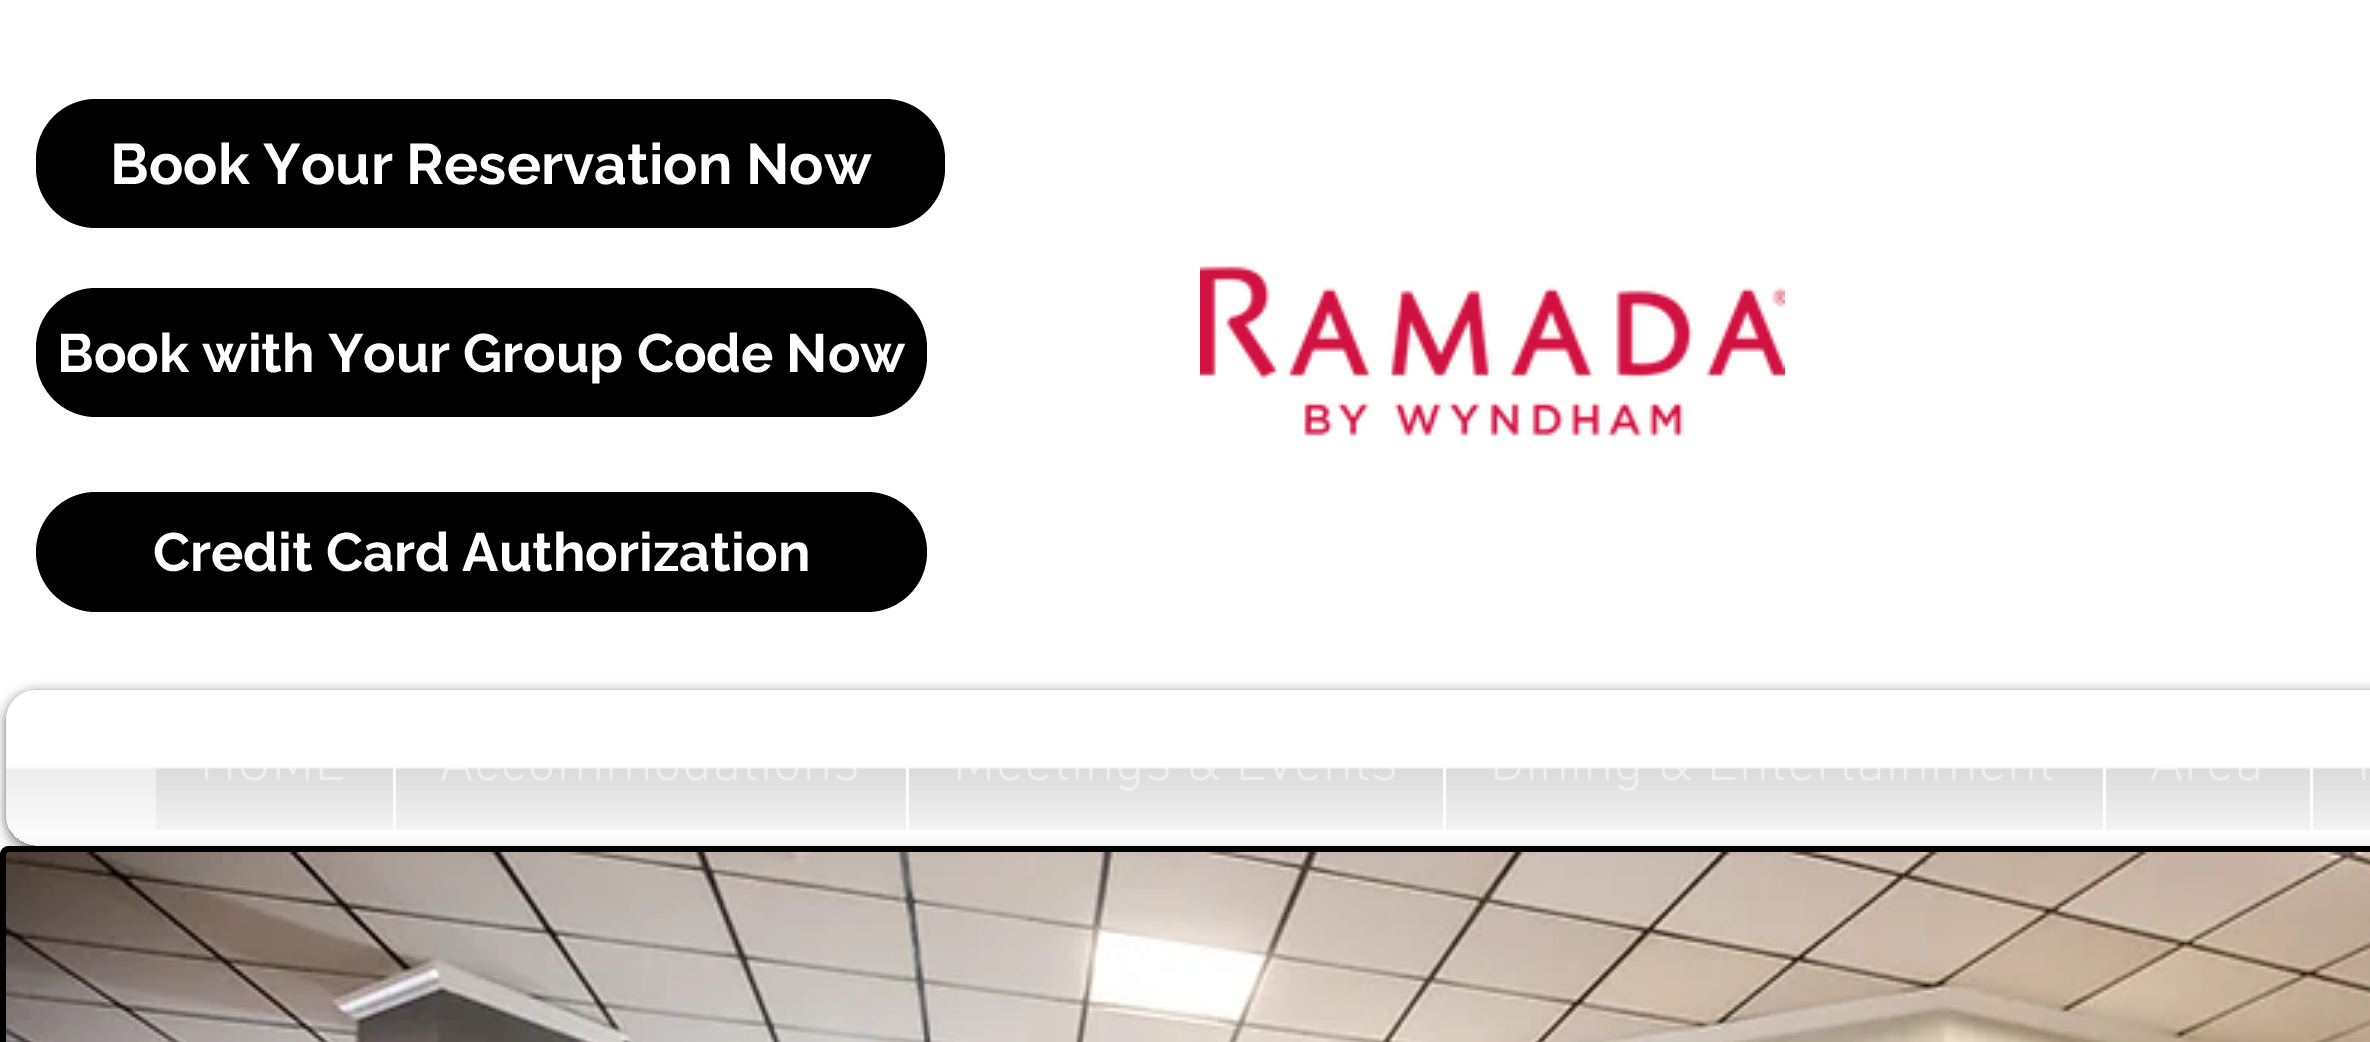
%!PS
<< /PageSize [2370 1042] /PageUsesTransparency true >> setpagedevice
/m/moveto load def
/l/rlineto load def
/c/rcurveto load def
/z/closepath load def
/f/fill load def
/s/stroke load def
/q/gsave load def
/Q_/grestore load def
/w/setlinewidth load def
/C { dup -16 bitshift 255 div exch dup -8 bitshift 255 and 255 div exch 255 and 255 div setrgbcolor } def
/F { [ exch dup neg 0 0 3 -1 roll 0 0 ] selectfont } def
/T { moveto show } def
/R { rectfill } def
/A { dup .setfillconstantalpha .setstrokeconstantalpha } def
/Q { 5 dict begin { /r /h /w /y /x } { exch def } forall
  x r add y moveto x w add y 2 copy h add r arct x w add y h add x 1 index r arct
  x y h add x y r arct x y 2 copy exch w add exch r arct closepath end } def
/S { 12 dict begin { /a /b /q /h /w /y /x } { exch def } forall gsave /was 0 def
  9 -2 -9 { dup b mul 4 div /e exch def 1 sub .425 mul 2.718 exch exp 1 add a .99 .min exch div /now exch def
    1 1 now sub 1 was sub div sub A /was now def
    w h .min e 2 mul add 0 gt { x e sub y e sub w e 2 mul add h e 2 mul add
      q e add b .6 mul add w h .min 2 div e add .min 0 .max Q fill } if } for grestore end } def
/I { 5 dict begin { /h /w /y /x /name } { exch def } forall
  gsave x y translate w h scale
  w h 8 [w 0 0 h 0 0] name (r) file false 3 colorimage grestore end } def
0 .pushpdf14devicefilter
0 1042 translate 1 -1 scale
4 setmiterlimit
16#FFFFFF C
0 0 2370 1042 R
16#000000 C
36 99 909 129 60 Q f
/Raleway-Bold 57 F
16#FFFFFF C
(Book Your Reservation Now) 110 184 T
16#000000 C
36 288 891 129 60 Q f
/Raleway-Bold 54 F
16#FFFFFF C
(Book with Your Group Code Now) 57 372 T
(1.rgb) 1200 266 585 170 I
16#000000 C
36 492 891 120 60 Q f
16#FFFFFF C
(Credit Card Authorization) 153 571 T
q
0 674 m 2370 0 l 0 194 l -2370 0 l z 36 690 m 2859 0 l 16.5 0 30 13.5 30 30 c 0 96 l 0 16.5 -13.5 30 -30 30 c -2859 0 l -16.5 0 -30 -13.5 -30 -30 c 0 -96 l 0 -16.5 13.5 -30 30 -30 c z eoclip newpath
16#000000 C
6 693 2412 156 30 6 .6 S
Q_
(2.rgb) 6 690 2364 140 I
(3.rgb) 156 767 237 63 I
0.92 A
393 767 3 63 R
1 A
(4.rgb) 396 767 510 63 I
0.92 A
906 767 3 63 R
1 A
(5.rgb) 909 767 534 63 I
0.92 A
1443 767 3 63 R
1 A
(6.rgb) 1446 767 657 63 I
0.92 A
2103 767 3 63 R
1 A
(7.rgb) 2106 767 204 63 I
0.92 A
2310 767 3 63 R
1 A
(8.rgb) 2313 767 57 63 I
4 846 5 5 R
16#000000 C
0 846 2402 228 9 7.5 .1 S
3 849 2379 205 6 Q q f Q_
6 w
s
(9.rgb) 6 852 2364 190 I
.poppdf14devicefilter showpage
